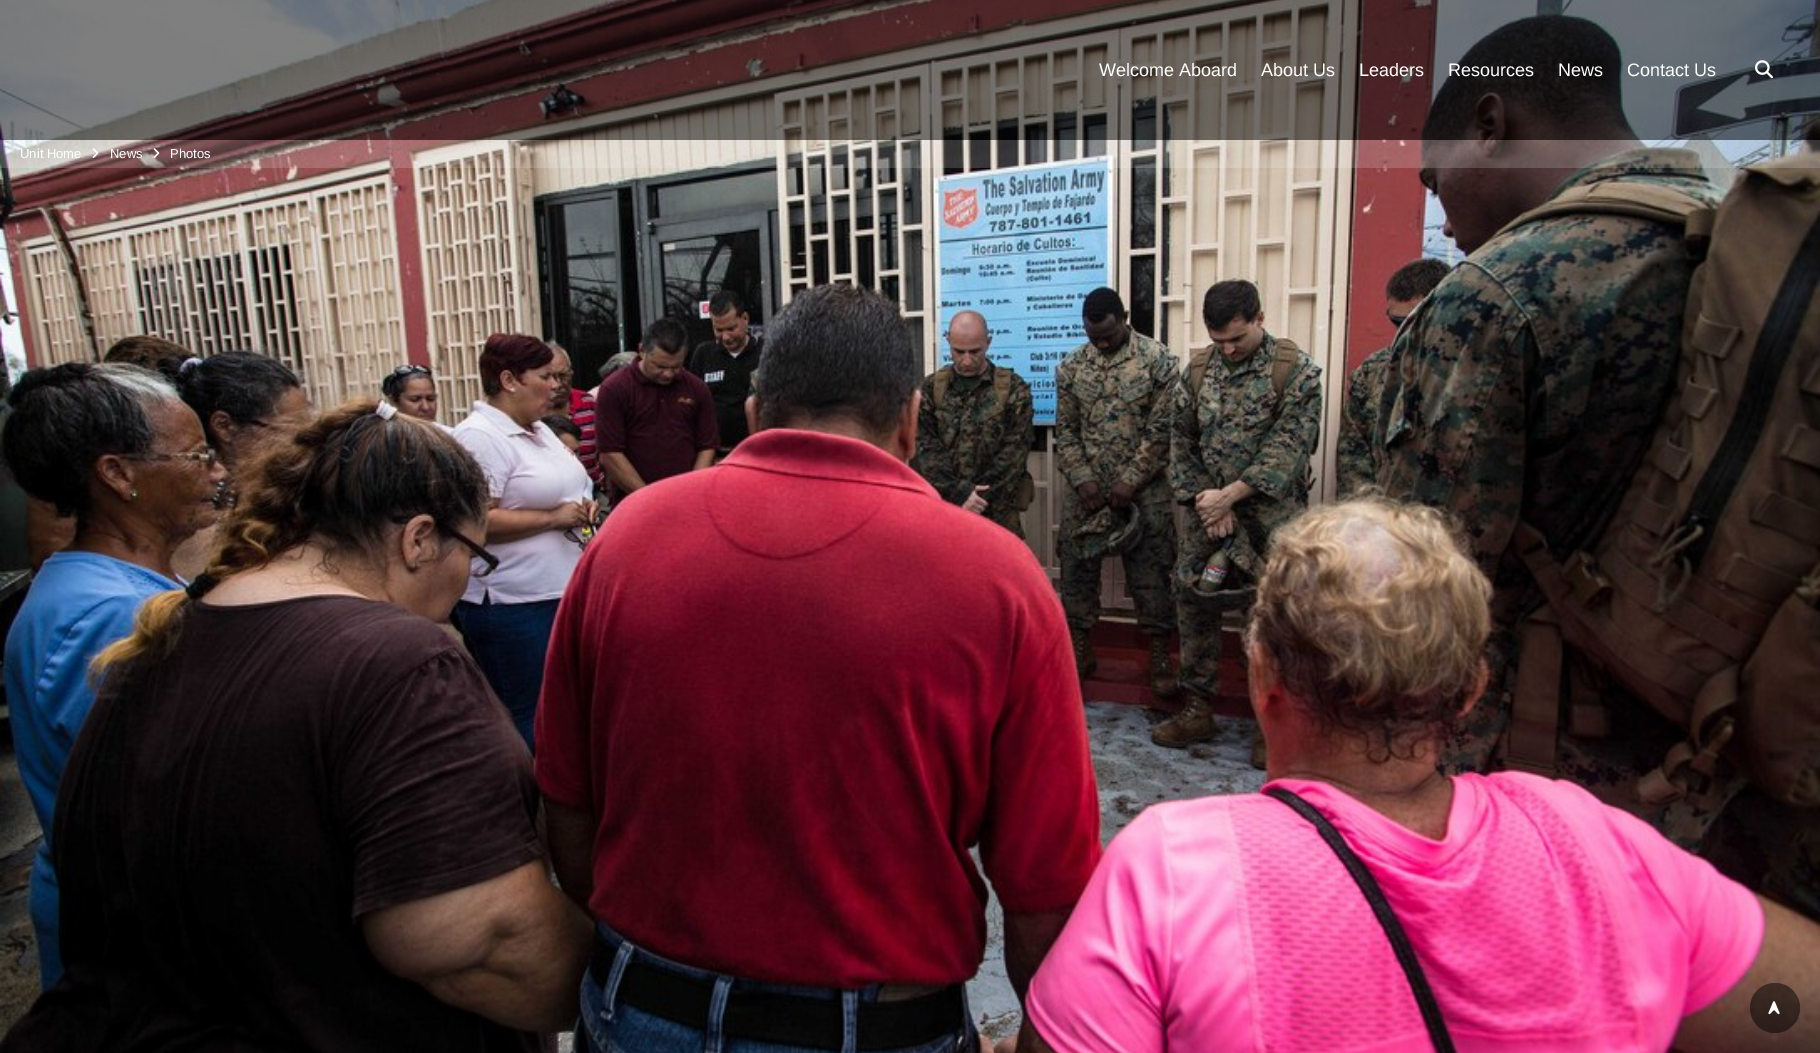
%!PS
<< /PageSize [1820 1053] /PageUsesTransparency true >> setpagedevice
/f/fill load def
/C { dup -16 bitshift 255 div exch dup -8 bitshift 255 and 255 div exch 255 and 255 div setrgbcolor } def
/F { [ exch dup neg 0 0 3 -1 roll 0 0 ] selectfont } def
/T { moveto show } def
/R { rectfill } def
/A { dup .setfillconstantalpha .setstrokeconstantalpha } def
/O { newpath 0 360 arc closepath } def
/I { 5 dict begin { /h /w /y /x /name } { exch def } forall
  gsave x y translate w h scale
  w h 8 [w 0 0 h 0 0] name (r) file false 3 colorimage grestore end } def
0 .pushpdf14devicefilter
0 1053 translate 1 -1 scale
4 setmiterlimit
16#FFFFFF C
0 0 1820 1053 R
(1.rgb) 0 0 1820 1053 I
0.5 A
16#000000 C
0 0 1820 140 R
/LiberationSans-Regular 18 F
1 A
16#FFFFFF C
(Welcome Aboard) 1099 76 T
(About Us) 1261 76 T
(Leaders) 1359 76 T
(Resources) 1448 76 T
(News) 1558 76 T
(Contact Us) 1627 76 T
(2.rgb) 1755 60 18 19 I
0.17 A
0 140 1820 28 R
/LiberationSans-Regular 13 F
1 A
(Unit Home) 20 158 T
(3.rgb) 92 148 7 10 I
(News) 110 158 T
(4.rgb) 153 148 7 10 I
(Photos) 170 158 T
0.5 A
16#000000 C
1775 1008 25 O f
1 A
(5.rgb) 1768 1001 12 14 I
.poppdf14devicefilter showpage
